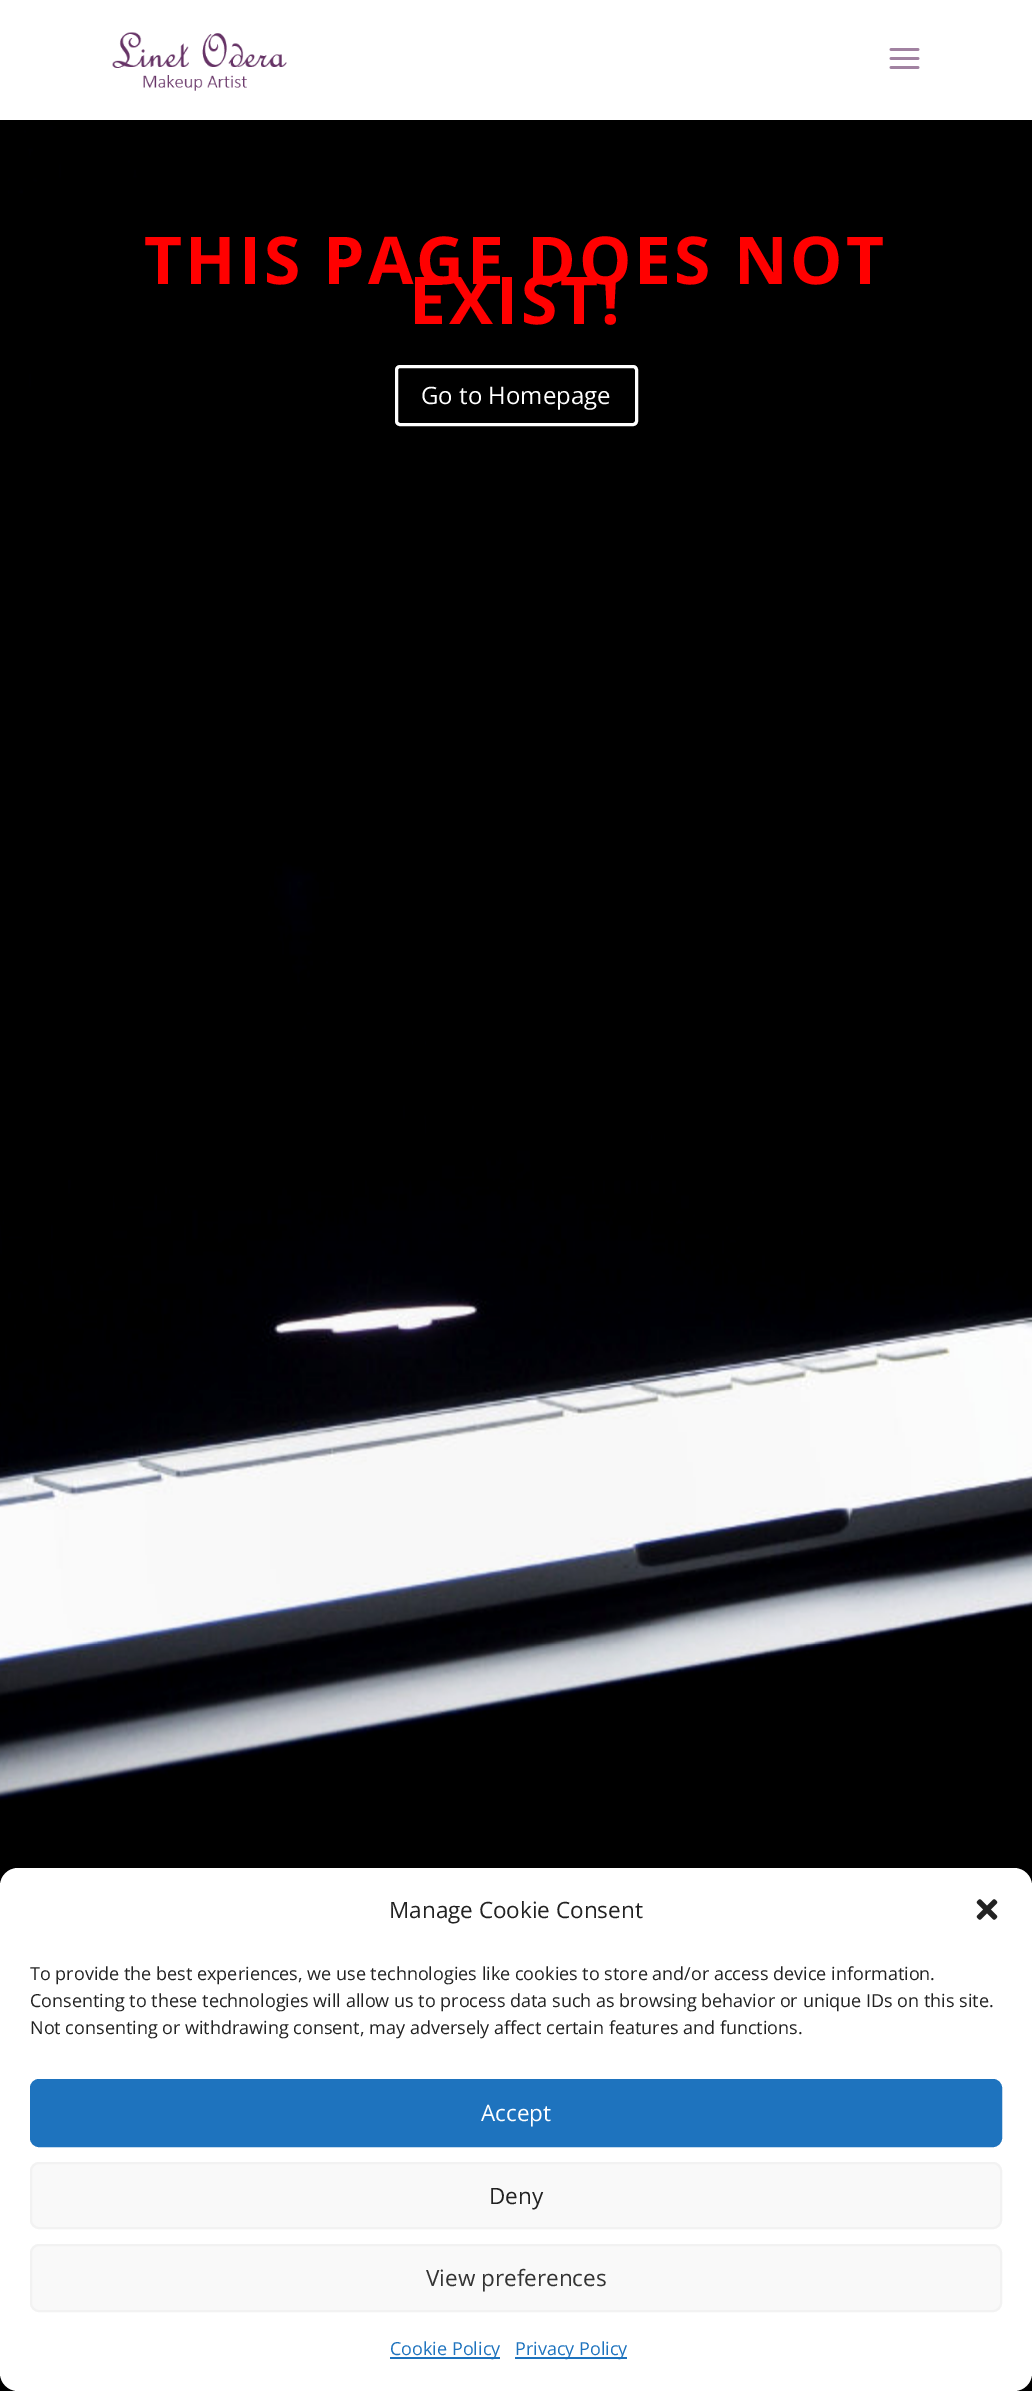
%!PS
<< /PageSize [1032 2391] >> setpagedevice
/m/moveto load def
/f/fill load def
/s/stroke load def
/q/gsave load def
/Q_/grestore load def
/w/setlinewidth load def
/C { dup -16 bitshift 255 div exch dup -8 bitshift 255 and 255 div exch 255 and 255 div setrgbcolor } def
/F { [ exch dup neg 0 0 3 -1 roll 0 0 ] selectfont } def
/T { moveto show } def
/R { rectfill } def
/Q { 5 dict begin { /r /h /w /y /x } { exch def } forall
  x r add y moveto x w add y 2 copy h add r arct x w add y h add x 1 index r arct
  x y h add x y r arct x y 2 copy exch w add exch r arct closepath end } def
/I { 5 dict begin { /h /w /y /x /name } { exch def } forall
  gsave x y translate w h scale
  w h 8 [w 0 0 h 0 0] name (r) file false 3 colorimage grestore end } def
0 2391 translate 1 -1 scale
4 setmiterlimit
16#FFFFFF C
0 0 1032 2391 R
16#000000 C
0 120 1032 2 R
(1.rgb) 112 32 175 59 I
(2.rgb) 889 48 31 21 I
(3.rgb) 0 122 1032 2269 I
/OpenSans-Bold 66 F
16#FF0000 C
144 284 m 3 0 (THIS PAGE DOES NOT) ashow
409 324 m 3 0 (EXIST!) ashow
16#FFFFFF C
3 w
396.5 366.5 240 58 3.5 Q s
/OpenSans-Regular 24 F
(Go to Homepage) 421 404 T
0 1868 1032 523 18 Q f
/OpenSans-Regular 22.5 F
16#222222 C
(Manage Cookie Consent) 389 1918 T
(4.rgb) 976 1899 22 21 I
/OpenSans-Regular 18 F
(To provide the best experiences, we use technologies like cookies to store and/or access device information.) 30 1980 T
(Consenting to these technologies will allow us to process data such as browsing behavior or unique IDs on this site.) 30 2007 T
(Not consenting or withdrawing consent, may adversely affect certain features and functions.) 30 2034 T
16#1E73BE C
31 2080 970 66 8 Q q f Q_
2 w
s
/OpenSans-Regular 22.5 F
16#FFFFFF C
(Accept) 481 2121 T
16#F9F9F9 C
31 2163 970 65 8 Q q f Q_
16#F2F2F2 C
s
16#222222 C
(Deny) 489 2204 T
16#F9F9F9 C
31 2245 970 66 8 Q q f Q_
16#F2F2F2 C
s
16#333333 C
(View preferences) 426 2286 T
16#1E73BE C
390 2357 110 2 R
/OpenSans-Regular 18 F
(Cookie Policy) 390 2355 T
515 2357 112 2 R
(Privacy Policy) 515 2355 T
showpage
